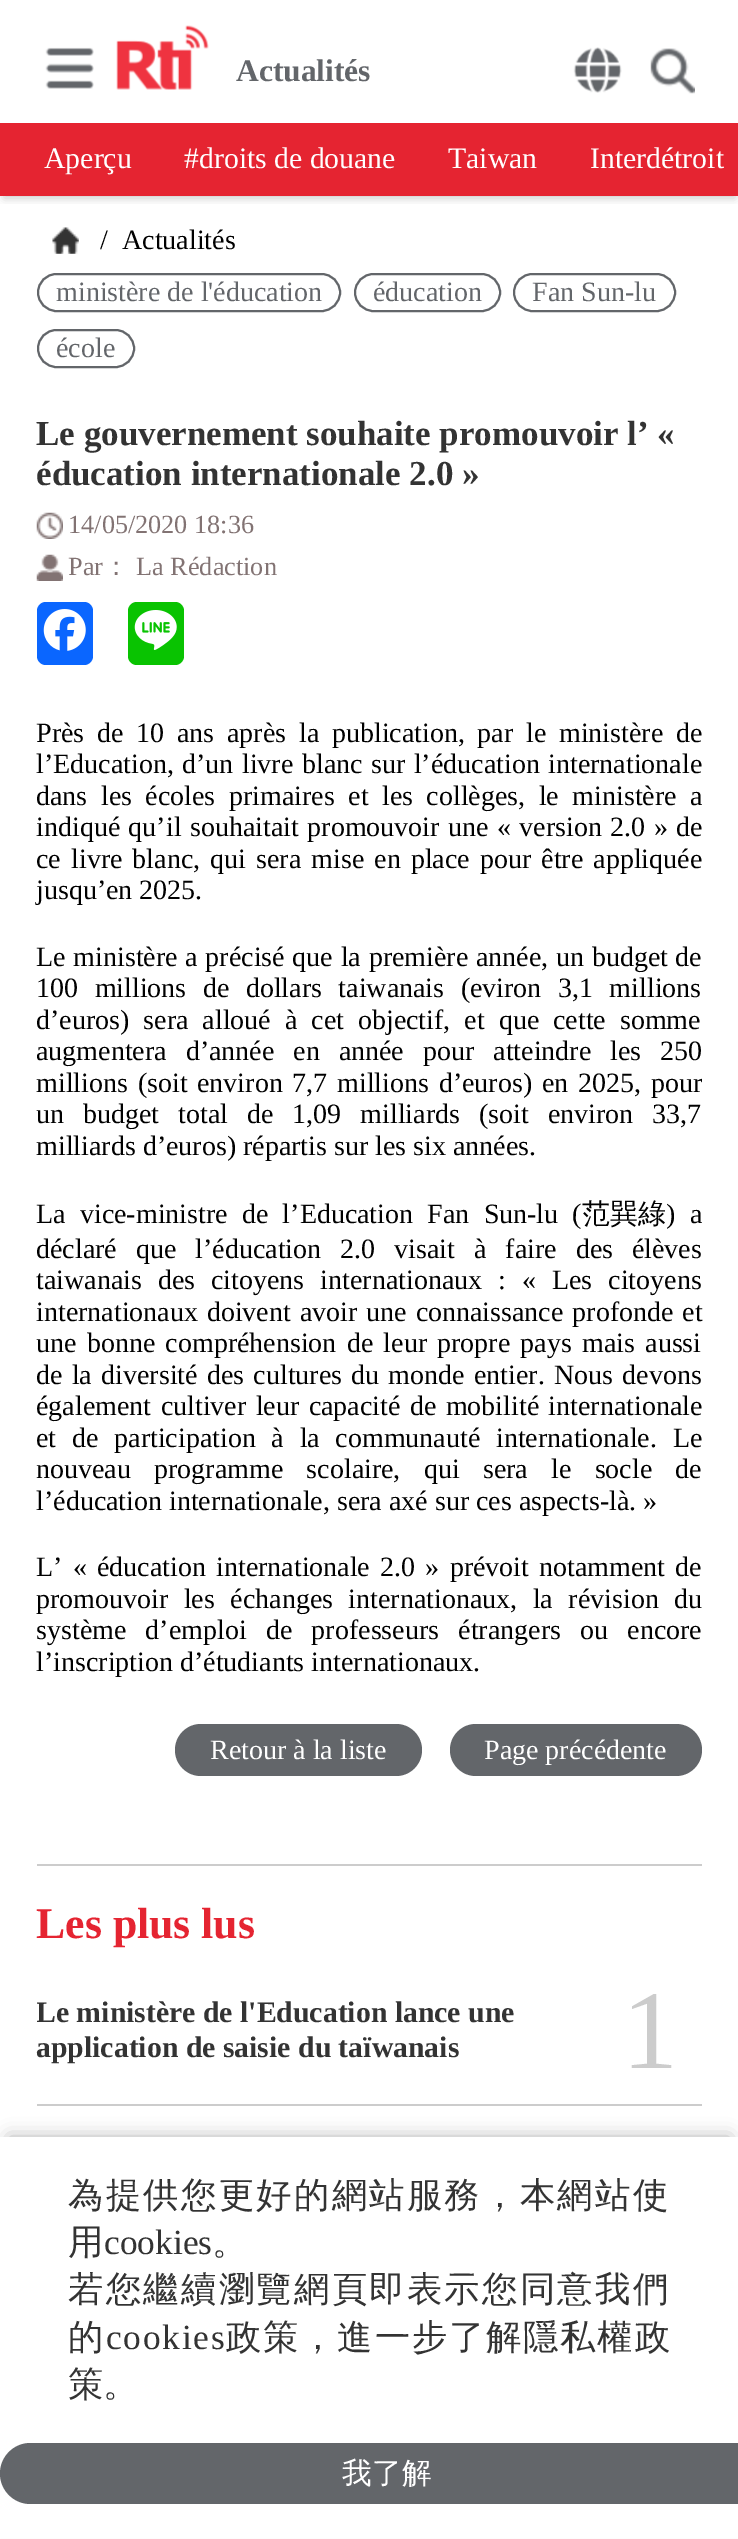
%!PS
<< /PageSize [738 2539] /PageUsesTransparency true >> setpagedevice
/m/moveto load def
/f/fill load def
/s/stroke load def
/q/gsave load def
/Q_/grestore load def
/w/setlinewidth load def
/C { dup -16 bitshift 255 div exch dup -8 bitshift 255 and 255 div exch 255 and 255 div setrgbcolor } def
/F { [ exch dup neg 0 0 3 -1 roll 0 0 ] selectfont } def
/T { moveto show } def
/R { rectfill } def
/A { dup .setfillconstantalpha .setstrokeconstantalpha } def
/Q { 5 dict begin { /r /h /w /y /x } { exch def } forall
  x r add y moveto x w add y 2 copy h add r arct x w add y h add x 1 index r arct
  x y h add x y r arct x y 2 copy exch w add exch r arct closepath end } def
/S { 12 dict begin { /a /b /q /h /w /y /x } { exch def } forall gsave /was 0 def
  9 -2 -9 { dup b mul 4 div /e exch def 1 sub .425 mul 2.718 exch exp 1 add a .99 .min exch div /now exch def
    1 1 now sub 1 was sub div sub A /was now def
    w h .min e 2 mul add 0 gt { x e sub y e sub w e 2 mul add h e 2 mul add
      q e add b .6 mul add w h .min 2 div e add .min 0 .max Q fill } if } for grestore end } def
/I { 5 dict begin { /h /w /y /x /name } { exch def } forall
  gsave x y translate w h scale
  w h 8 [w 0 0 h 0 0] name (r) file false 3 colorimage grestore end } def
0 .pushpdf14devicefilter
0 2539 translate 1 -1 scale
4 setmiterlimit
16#FFFFFF C
0 0 738 2539 R
q
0 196 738 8 rectclip
16#000000 C
4 9 731 189 0 4.5 .2 S
Q_
(1.rgb) 45 47 49 42 I
(2.rgb) 116 25 93 65 I
/LiberationSerif-Bold 31.5 F
16#63666A C
(Actualités) 236 81 T
(3.rgb) 573 47 49 46 I
(4.rgb) 650 48 45 46 I
16#E52431 C
0 123 738 73 R
/LiberationSerif-Regular 29.75 F
16#FFFFFF C
(Aperçu) 44 168 T
(#droits de douane) 184 168 T
(Taiwan) 448 168 T
(Interdétroit) 590 168 T
(5.rgb) 52 227 27 27 I
/LiberationSerif-Regular 28 F
16#000000 C
(/) 100 249 T
(Actualités) 122 249 T
16#63666A C
2 w
38 274 302 37 18.5 Q s
(ministère de l'éducation) 56 301 T
355 274 145 37 18.5 Q s
(éducation) 373 301 T
514 274 161 37 18.5 Q s
(Fan Sun-lu) 532 301 T
38 330 96 37 18.5 Q s
(école) 56 357 T
/LiberationSerif-Bold 35 F
16#333333 C
(Le gouvernement souhaite promouvoir l’ «) 36 445 T
(éducation internationale 2.0 ») 36 485 T
(6.rgb) 36 512 27 27 I
/LiberationSerif-Regular 26.25 F
16#827373 C
(14/05/2020 18:36) 68 533 T
(7.rgb) 36 554 27 27 I
(Par) 68 575 T
/WenQuanYiZenHei-Medium 26.25 F
(：) 103 575 T
/LiberationSerif-Regular 26.25 F
(La Rédaction) 136 575 T
16#0A66FF C
37 602 56 63 9 Q f
(8.rgb) 43 609 43 42 I
16#09C301 C
128 602 56 63 9 Q f
(9.rgb) 134 610 43 40 I
/LiberationSerif-Regular 28 F
16#000000 C
36 742 m 5.75 0 32 (Près de 10 ans après la publication, par le ministère de) widthshow
36 773 m 1.5 0 32 (l’Education, d’un livre blanc sur l’éducation internationale) widthshow
36 805 m 6.5 0 32 (dans les écoles primaires et les collèges, le ministère a) widthshow
36 836 m 1.5 0 32 (indiqué qu’il souhaitait promouvoir une « version 2.0 » de) widthshow
36 868 m 3.1 0 32 (ce livre blanc, qui sera mise en place pour être appliquée) widthshow
(jusqu’en 2025.) 36 899 T
36 966 m .75 0 32 (Le ministère a précisé que la première année, un budget de) widthshow
36 997 m 9.5 0 32 (100 millions de dollars taiwanais \(eviron 3,1 millions) widthshow
36 1029 m 7 0 32 (d’euros\) sera alloué à cet objectif, et que cette somme) widthshow
36 1060 m 12 0 32 (augmentera d’année en année pour atteindre les 250) widthshow
36 1092 m 2.75 0 32 (millions \(soit environ 7,7 millions d’euros\) en 2025, pour) widthshow
36 1123 m 12 0 32 (un budget total de 1,09 milliards \(soit environ 33,7) widthshow
(milliards d’euros\) répartis sur les six années.) 36 1155 T
36 1223 m 7.25 0 32 (La vice-ministre de l’Education Fan Sun-lu \() widthshow
/WenQuanYiZenHei-Medium 28 F
(范巽綠) 582 1223 T
/LiberationSerif-Regular 28 F
666 1223 m 7.25 0 32 (\) a) widthshow
36 1258 m 12 0 32 (déclaré que l’éducation 2.0 visait à faire des élèves) widthshow
36 1289 m 9 0 32 (taiwanais des citoyens internationaux : « Les citoyens) widthshow
36 1321 m 2 0 32 (internationaux doivent avoir une connaissance profonde et) widthshow
36 1352 m 3.25 0 32 (une bonne compréhension de leur propre pays mais aussi) widthshow
36 1384 m 2.25 0 32 (de la diversité des cultures du monde entier. Nous devons) widthshow
36 1415 m 2.5 0 32 (également cultiver leur capacité de mobilité internationale) widthshow
36 1447 m 8.75 0 32 (et de participation à la communauté internationale. Le) widthshow
36 1478 m 16.25 0 32 (nouveau programme scolaire, qui sera le socle de) widthshow
(l’éducation internationale, sera axé sur ces aspects-là. ») 36 1510 T
36 1576 m 3.25 0 32 (L’ « éducation internationale 2.0 » prévoit notamment de) widthshow
36 1608 m 8.5 0 32 (promouvoir les échanges internationaux, la révision du) widthshow
36 1639 m 12.25 0 32 (système d’emploi de professeurs étrangers ou encore) widthshow
(l’inscription d’étudiants internationaux.) 36 1671 T
16#CCCCCC C
37 1864 665 2 R
16#63666A C
175 1724 247 52 26 Q f
16#FFFFFF C
(Retour à la liste) 210 1759 T
16#63666A C
450 1724 252 52 26 Q f
16#FFFFFF C
(Page précédente) 484 1759 T
/LiberationSerif-Bold 43.75 F
16#E52431 C
(Les plus lus) 36 1938 T
16#CCCCCC C
37 2104 665 2 R
q
37 1974 665 130 rectclip
/LiberationSerif-Bold 29.75 F
16#333333 C
(Le ministère de l'Education lance une) 36 2022 T
Q_
/LiberationSerif-Bold 29.75 F
16#333333 C
(application de saisie du taïwanais) 36 2057 T
/LiberationSerif-Regular 112 F
16#CCCCCC C
(1) 622 2068 T
16#000000 C
9 2137 721 385 0 9 .3 S
16#FFFFFF C
0 2137 738 401 R
/WenQuanYiZenHei-Medium 35.4 F
16#333333 C
68 2207 m 2.25 0 (為提供您更好的網站服務，本網站使) ashow
(用) 68 2254 T
/LiberationSerif-Regular 35.4 F
(cookies) 104 2254 T
/WenQuanYiZenHei-Medium 35.4 F
(。) 212 2254 T
68 2301 m 2.25 0 (若您繼續瀏覽網頁即表示您同意我們) ashow
68 2349 m 1.75 0 (的) ashow
/LiberationSerif-Regular 35.4 F
106 2349 m 1.75 0 (cookies) ashow
/WenQuanYiZenHei-Medium 35.4 F
226 2349 m 1.75 0 (政策，進一步了解隱私權政) ashow
(策。) 68 2396 T
16#63666A C
0 2443 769 61 30.5 Q f
/WenQuanYiZenHei-Medium 29.75 F
16#FFFFFF C
(我了解) 342 2483 T
.poppdf14devicefilter showpage
